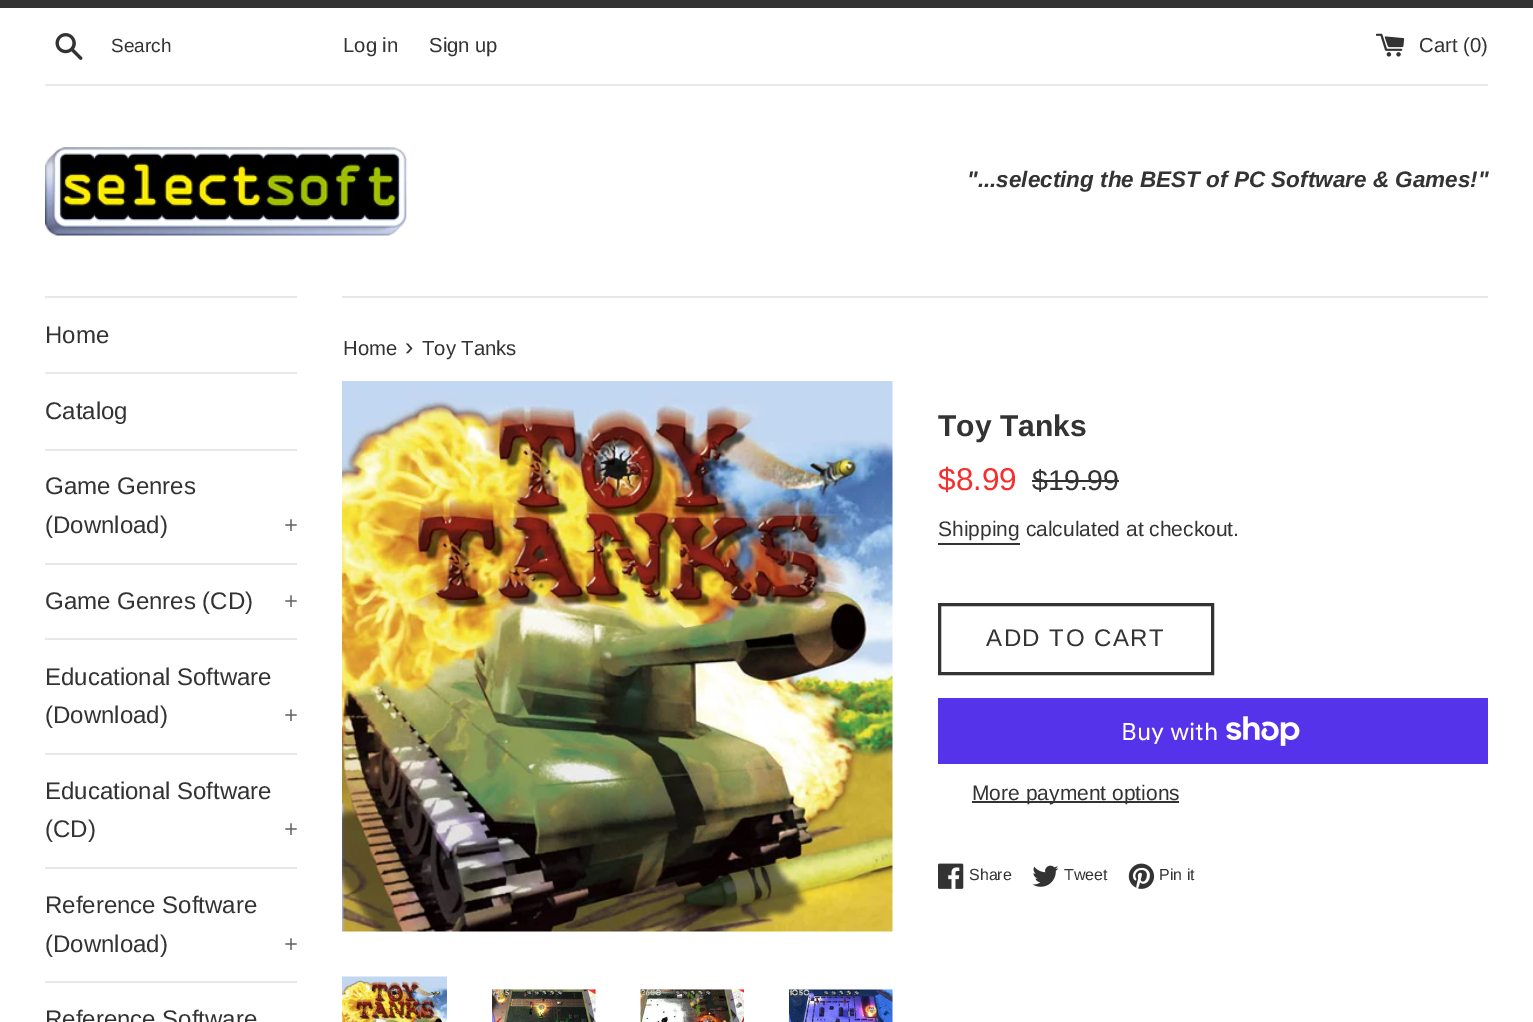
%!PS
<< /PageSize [1533 1022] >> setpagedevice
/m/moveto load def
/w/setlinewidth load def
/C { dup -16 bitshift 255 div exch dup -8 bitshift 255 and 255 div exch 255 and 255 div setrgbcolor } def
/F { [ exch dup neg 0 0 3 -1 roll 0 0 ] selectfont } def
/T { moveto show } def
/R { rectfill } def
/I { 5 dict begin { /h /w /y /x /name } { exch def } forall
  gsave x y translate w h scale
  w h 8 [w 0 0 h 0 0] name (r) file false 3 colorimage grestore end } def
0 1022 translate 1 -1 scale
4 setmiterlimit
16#FFFFFF C
0 0 1533 1022 R
16#333333 C
0 0 1533 8 R
(1.rgb) 55 33 28 27 I
/LiberationSans-Regular 19 F
(Search) 111 52 T
/LiberationSans-Regular 20.25 F
(Log in) 343 52 T
(Sign up) 429 52 T
(2.rgb) 1376 33 29 24 I
(Cart \(0\)) 1419 52 T
16#E8E8E8 C
45 84 1443 2 R
(3.rgb) 45 147 362 89 I
/LiberationSans-BoldItalic 22.5 F
16#333333 C
("...selecting the BEST of PC Software & Games!") 967 187 T
16#E8E8E8 C
45 296 252 2 R
45 372 252 2 R
/LiberationSans-Regular 24 F
16#333333 C
(Home) 45 343 T
16#E8E8E8 C
45 449 252 2 R
16#333333 C
(Catalog) 45 419 T
16#E8E8E8 C
45 563 252 2 R
16#333333 C
(Game Genres) 45 494 T
(\(Download\)) 45 533 T
16#5C5C5C C
(+) 284 533 T
16#E8E8E8 C
45 638 252 2 R
16#333333 C
(Game Genres \(CD\)) 45 609 T
16#5C5C5C C
(+) 284 609 T
16#E8E8E8 C
45 753 252 2 R
16#333333 C
(Educational Software) 45 685 T
(\(Download\)) 45 723 T
16#5C5C5C C
(+) 284 723 T
16#E8E8E8 C
45 867 252 2 R
16#333333 C
(Educational Software) 45 799 T
(\(CD\)) 45 837 T
16#5C5C5C C
(+) 284 837 T
16#E8E8E8 C
45 981 252 2 R
16#333333 C
(Reference Software) 45 913 T
(\(Download\)) 45 952 T
16#5C5C5C C
(+) 284 952 T
16#333333 C
(Reference Software) 45 1027 T
16#E8E8E8 C
342 296 1146 2 R
/LiberationSans-Regular 20.25 F
16#333333 C
(Home) 343 355 T
/LiberationSans-Regular 25 F
(›) 405 355 T
/LiberationSans-Regular 20.25 F
(Toy Tanks) 422 355 T
(4.rgb) 342 381 551 551 I
(5.rgb) 342 976 105 46 I
(6.rgb) 492 987 104 35 I
(7.rgb) 640 987 104 35 I
(8.rgb) 789 987 104 35 I
/LiberationSans-Bold 30 F
(Toy Tanks) 938 436 T
/LiberationSans-Regular 31.5 F
16#F72E2E C
($8.99) 938 490 T
/LiberationSans-Regular 28.5 F
16#333333 C
($19.99) 1032 490 T
1032 480 87 2 R
/LiberationSans-Regular 21 F
(Shipping calculated at checkout.) 938 536 T
938 543 82 2 R
3 w
939.5 604.5 273 69 rectstroke
/LiberationSans-Regular 24 F
986 646 m 1.5 0 (ADD TO CART) ashow
16#5433EB C
938 698 550 66 R
/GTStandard-Regular 24 F
16#FFFFFF C
(Buy with) 1121 740 T
(9.rgb) 1226 716 74 30 I
16#333333 C
972 801 207 2 R
/LiberationSans-Regular 21 F
(More payment options) 972 800 T
(10.rgb) 938 863 26 26 I
/LiberationSans-Regular 16 F
(Share) 969 880 T
(11.rgb) 1032 865 27 22 I
(Tweet) 1064 880 T
(12.rgb) 1128 863 27 26 I
(Pin it) 1159 880 T
showpage
